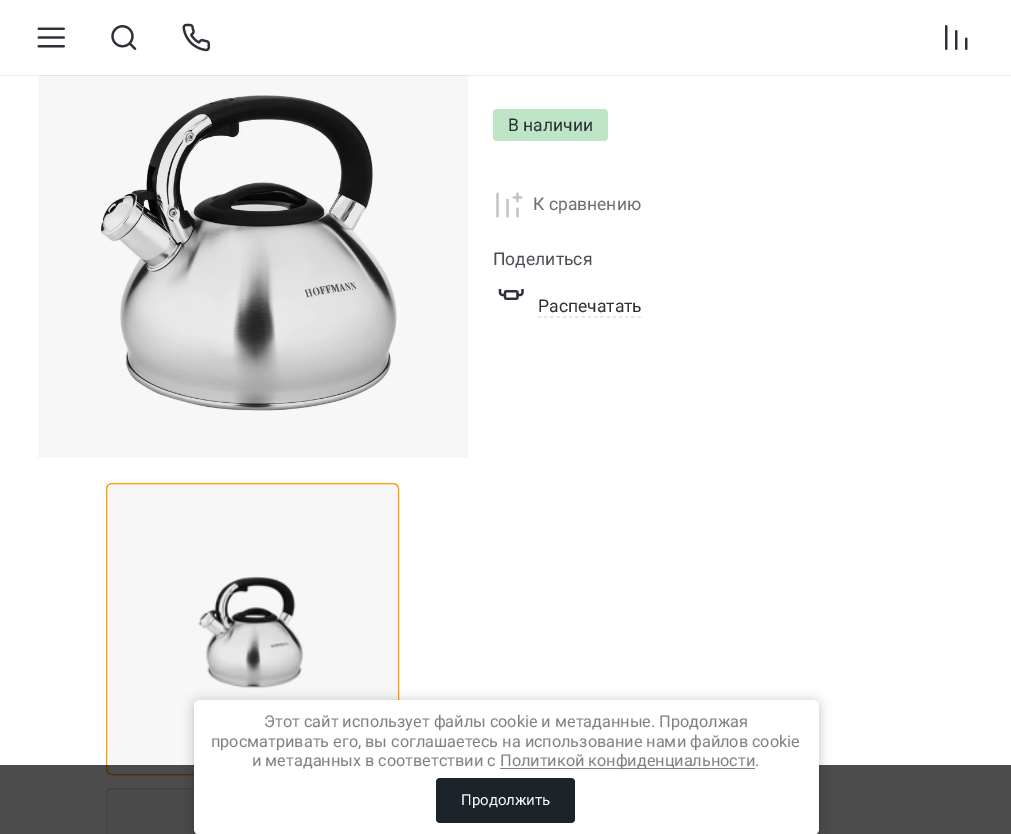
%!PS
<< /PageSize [1011 834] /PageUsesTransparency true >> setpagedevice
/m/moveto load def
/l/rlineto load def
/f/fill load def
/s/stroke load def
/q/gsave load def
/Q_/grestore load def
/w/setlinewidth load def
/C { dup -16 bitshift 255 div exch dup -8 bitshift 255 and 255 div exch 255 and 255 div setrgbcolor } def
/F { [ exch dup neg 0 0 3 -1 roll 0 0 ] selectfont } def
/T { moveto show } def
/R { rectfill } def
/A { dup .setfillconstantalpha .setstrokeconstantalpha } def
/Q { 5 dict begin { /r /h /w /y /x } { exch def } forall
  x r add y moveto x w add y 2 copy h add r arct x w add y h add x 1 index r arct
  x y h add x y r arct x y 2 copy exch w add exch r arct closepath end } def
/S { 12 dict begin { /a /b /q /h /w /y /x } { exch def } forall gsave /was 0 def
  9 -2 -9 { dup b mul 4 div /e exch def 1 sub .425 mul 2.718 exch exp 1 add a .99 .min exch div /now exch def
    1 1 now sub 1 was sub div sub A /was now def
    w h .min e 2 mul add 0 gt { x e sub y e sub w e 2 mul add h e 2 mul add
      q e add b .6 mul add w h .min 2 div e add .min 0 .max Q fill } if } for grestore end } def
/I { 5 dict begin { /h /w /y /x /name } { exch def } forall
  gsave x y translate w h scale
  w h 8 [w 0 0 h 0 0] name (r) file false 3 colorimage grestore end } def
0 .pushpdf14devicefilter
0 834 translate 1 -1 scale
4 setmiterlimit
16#FFFFFF C
0 0 1011 834 R
(5.rgb) 100 95 297 316 I
0.03 A
16#000000 C
38 75 430 383 R
0.08 A
0 75 1011 1 R
1 A
(1.rgb) 37 27 28 21 I
(2.rgb) 111 25 26 25 I
(3.rgb) 182 23 28 29 I
(4.rgb) 945 25 23 25 I
(6.rgb) 198 575 106 114 I
0.03 A
106 483 293 292 R
1 A
16#FF9900 C
106.5 483.5 292 291 5.5 Q s
16#F7F7F7 C
106.5 788.5 292 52 5.5 Q q f Q_
16#D9D9D9 C
s
16#BDE5C6 C
493 109 115 32 4 Q f
/Roboto-Regular 17.5 F
16#2E2F38 C
(В наличии) 508 131 T
(7.rgb) 496 192 27 26 I
16#6D6D74 C
(К сравнению) 533 210 T
16#4B4E54 C
(Поделиться) 493 265 T
(8.rgb) 498 289 26 11 I
16#2E2F38 C
(Распечатать) 538 312 T
16#E0E0E0 C
1.2 w
[3.75 2.5] 0 setdash
537.5 317 m 103.5 0 l s
0.7 A
16#000000 C
0 765 1011 69 R
1 A
194 701 625 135 6 6 .23 S
16#FFFFFF C
194 700 625 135 6 Q f
/Roboto-Regular 16.25 F
16#808080 C
(Этот сайт использует файлы cookie и метаданные. Продолжая) 264 727 T
(просматривать его, вы соглашаетесь на использование нами файлов cookie) 211 747 T
(и метаданных в соответствии с) 252 766 T
500 768 255 1 R
(Политикой конфиденциальности.) 500 766 T
16#1C2429 C
436 778 139 45 4 Q f
/Roboto-Regular 15 F
16#FFFFFF C
(Продолжить) 461 805 T
.poppdf14devicefilter showpage
